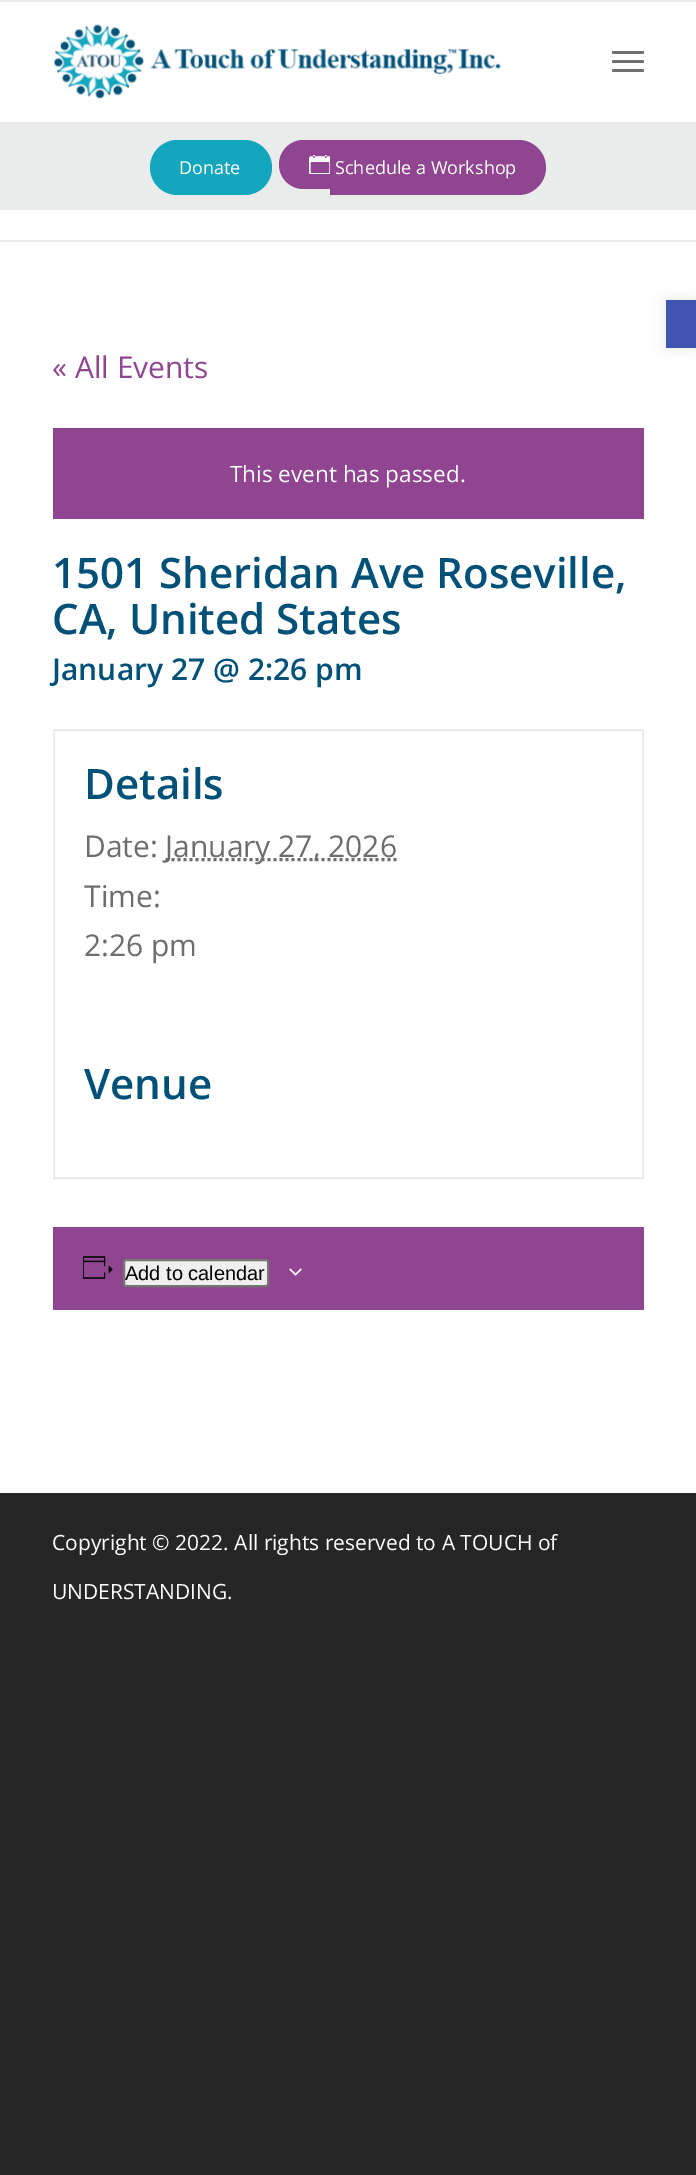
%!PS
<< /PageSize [696 2175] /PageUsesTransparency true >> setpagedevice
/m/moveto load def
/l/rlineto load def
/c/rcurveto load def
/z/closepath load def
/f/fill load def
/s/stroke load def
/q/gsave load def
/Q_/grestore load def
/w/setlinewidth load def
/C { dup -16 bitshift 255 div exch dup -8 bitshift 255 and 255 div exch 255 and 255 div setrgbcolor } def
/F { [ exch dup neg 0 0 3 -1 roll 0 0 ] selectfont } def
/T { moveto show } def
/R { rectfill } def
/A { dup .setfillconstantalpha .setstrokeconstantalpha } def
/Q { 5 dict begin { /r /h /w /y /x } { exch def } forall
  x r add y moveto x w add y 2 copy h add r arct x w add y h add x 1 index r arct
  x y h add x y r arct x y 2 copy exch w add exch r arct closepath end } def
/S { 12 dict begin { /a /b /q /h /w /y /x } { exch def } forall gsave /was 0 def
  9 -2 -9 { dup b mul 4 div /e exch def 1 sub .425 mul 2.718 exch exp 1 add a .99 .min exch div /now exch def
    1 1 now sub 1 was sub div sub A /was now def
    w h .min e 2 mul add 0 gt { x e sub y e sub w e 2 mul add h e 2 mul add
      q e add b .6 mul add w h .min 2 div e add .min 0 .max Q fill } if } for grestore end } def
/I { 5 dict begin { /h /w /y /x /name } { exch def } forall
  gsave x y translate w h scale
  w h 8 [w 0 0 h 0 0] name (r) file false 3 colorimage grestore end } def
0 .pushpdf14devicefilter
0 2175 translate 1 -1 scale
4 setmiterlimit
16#262626 C
0 0 696 2175 R
16#EBEBEB C
0 0 696 2 R
16#FFFFFF C
0 2 696 1491 R
16#EBEBEB C
0 122 696 2 R
(1.rgb) 54 24 447 75 I
16#707070 C
612 60 32 3 1.5 Q f
612 51 32 3 1.5 Q f
612 69 32 3 1.5 Q f
16#EAEBEB C
0 124 696 86 R
16#13A6BD C
150 140 122 55 27.5 Q f
/OpenSans-Regular 18 F
16#FFFFFF C
(Donate) 179 174 T
16#8F458F C
303.5 140 m 26.5 0 l 0 49 l -26.5 0 l -13.5 0 -24.5 -11 -24.5 -24.5 c 0 -13.5 11 -24.5 24.5 -24.5 c z f
(2.rgb) 309 155 21 19 I
330 140 m 188.5 0 l 15 0 27.5 12.5 27.5 27.5 c 0 15 -12.5 27.5 -27.5 27.5 c -188.5 0 l z f
16#FFFFFF C
(Schedule a Workshop) 335 174 T
16#EBEBEB C
0 240 696 2 R
/OpenSans-Regular 30 F
16#8F458F C
(« All Events) 52 378 T
53 428 591 91 R
/OpenSans-Regular 22.5 F
16#FFFFFF C
(This event has passed.) 230 482 T
/OpenSans-SemiBold 42 F
16#005078 C
(1501 Sheridan Ave Roseville,) 52 588 T
(CA, United States) 52 634 T
/OpenSans-SemiBold 30 F
(January 27 @ 2:26 pm) 52 680 T
16#EBEBEB C
2 w
54 730 589 448 rectstroke
/OpenSans-SemiBold 42 F
16#005078 C
(Details) 84 799 T
/OpenSans-Regular 30 F
16#6D6D6D C
(Date:) 84 857 T
3 w
[3 3] 0 setdash
165.5 859.5 m 231.5 0 l s
(January 27, 2026) 165 857 T
(Time:) 84 907 T
(2:26 pm) 84 956 T
/OpenSans-SemiBold 42 F
16#005078 C
(Venue) 84 1099 T
16#8F458F C
53 1227 591 83 R
(3.rgb) 83 1256 30 23 I
16#EFEFEF C
124 1260 144 26 2 Q q f Q_
16#767676 C
2 w
[] 0 setdash
s
/LiberationSans-Regular 20 F
16#000000 C
(Add to calendar) 125 1280 T
(4.rgb) 289 1268 13 8 I
/OpenSans-Regular 21 F
16#FFFFFF C
(Copyright © 2022. All rights reserved to A TOUCH of) 52 1550 T
(UNDERSTANDING.) 52 1599 T
16#000000 C
666 300 30 48 0 7.5 .1 S
16#4054B2 C
666 300 30 48 R
.poppdf14devicefilter showpage
